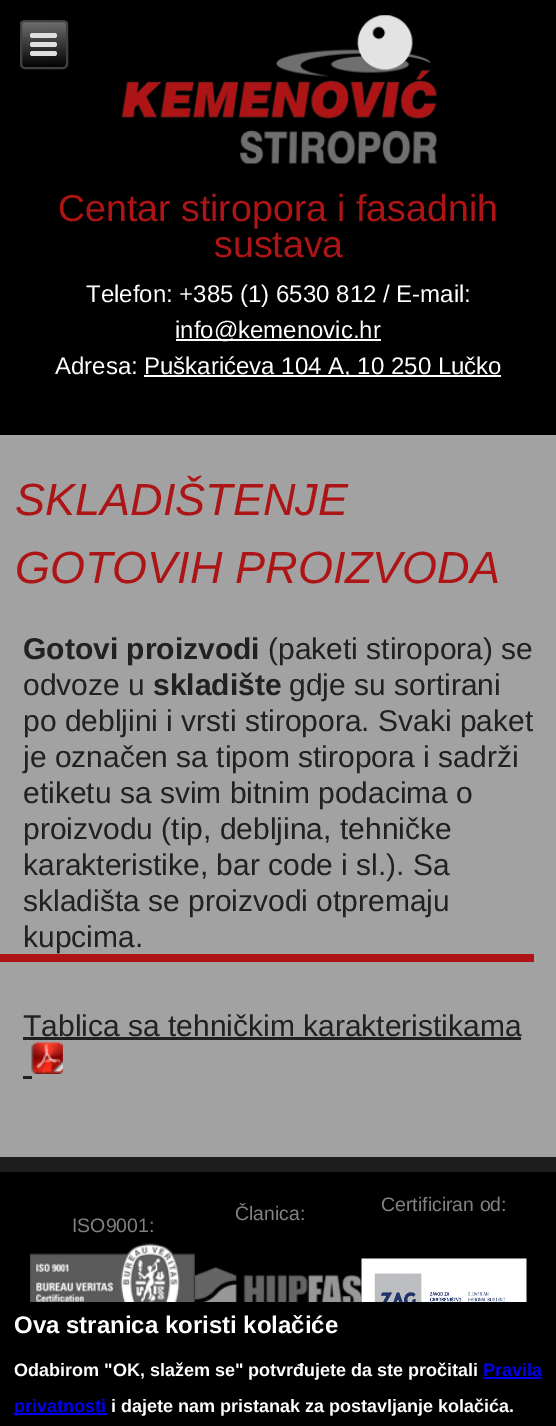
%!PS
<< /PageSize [556 1426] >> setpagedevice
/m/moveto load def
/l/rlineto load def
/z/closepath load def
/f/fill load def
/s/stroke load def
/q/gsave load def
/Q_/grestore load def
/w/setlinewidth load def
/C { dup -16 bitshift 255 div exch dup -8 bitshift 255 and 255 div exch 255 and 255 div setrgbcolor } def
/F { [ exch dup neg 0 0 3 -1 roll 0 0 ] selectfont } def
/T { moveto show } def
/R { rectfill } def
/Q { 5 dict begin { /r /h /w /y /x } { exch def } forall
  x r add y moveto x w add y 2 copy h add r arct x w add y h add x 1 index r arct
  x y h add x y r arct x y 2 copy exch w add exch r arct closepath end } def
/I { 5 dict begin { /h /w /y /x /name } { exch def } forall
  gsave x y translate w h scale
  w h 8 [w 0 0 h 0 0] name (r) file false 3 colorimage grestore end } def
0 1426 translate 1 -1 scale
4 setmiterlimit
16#1D1D1D C
0 0 556 1426 R
16#000000 C
0 0 556 435 R
(1.rgb) 121 15 316 149 I
q
20 20 48 49 5 Q clip newpath
q 20 21 m 48 0 l 0 47 l -48 0 l z clip newpath
<< /ShadingType 2 /ColorSpace /DeviceRGB /Coords [43 21 44 68] /Extend [true true] /Function << /FunctionType 2 /Domain [0 1] /C0 [.439 .439 .439] /C1 [0 0 0] /N 1 >> >> shfill Q_
Q_
16#404040 C
2 w
21 21 46 47 4 Q s
16#E0E0E0 C
30 33 27 5 2.5 Q f
30 42 27 5 2.5 Q f
30 51 27 5 2.5 Q f
/LiberationSans-Regular 37.5 F
16#AD1415 C
(Centar stiropora i fasadnih) 58 221 T
(sustava) 214 257 T
/LiberationSans-Regular 24 F
16#FFFFFF C
(Telefon: +385 \(1\) 6530 812 / E-mail:) 86 302 T
176 339 205 2 R
(info@kemenovic.hr) 175 338 T
(Adresa:) 55 374 T
144 375 357 2 R
(Puškarićeva 104 A, 10 250 Lučko) 144 374 T
16#A3A2A2 C
0 435 556 722 R
/LiberationSans-Italic 45 F
16#AD1415 C
(SKLADIŠTENJE) 15 515 T
(GOTOVIH PROIZVODA) 15 583 T
/LiberationSans-Bold 30 F
16#212121 C
(Gotovi proizvodi) 23 659 T
/LiberationSans-Regular 30 F
(\(paketi stiropora\) se) 268 659 T
(odvoze u) 23 695 T
/LiberationSans-Bold 30 F
(skladište) 153 695 T
/LiberationSans-Regular 30 F
(gdje su sortirani) 289 695 T
(po debljini i vrsti stiropora. Svaki paket) 23 731 T
(je označen sa tipom stiropora i sadrži) 23 767 T
(etiketu sa svim bitnim podacima o) 23 803 T
(proizvodu \(tip, debljina, tehničke) 23 839 T
(karakteristike, bar code i sl.\). Sa) 23 875 T
(skladišta se proizvodi otpremaju) 23 911 T
(kupcima.) 23 947 T
16#AD1415 C
0 954 534 8 R
16#212121 C
(Tablica sa tehničkim karakteristikama) 23 1036 T
23 1037 498 3 R
23 1076 9 3 R
(2.rgb) 31 1042 32 32 I
16#000000 C
0 1172 556 254 R
/LiberationSans-Regular 19.5 F
16#808183 C
(Članica:) 235 1220 T
(3.rgb) 195 1267 167 35 I
(Certificiran od:) 381 1211 T
(4.rgb) 361 1258 166 44 I
(ISO9001:) 72 1232 T
(5.rgb) 30 1243 165 59 I
/LiberationSans-Bold 24 F
16#FFFFFF C
(Ova stranica koristi kolačiće) 14 1333 T
/LiberationSans-Bold 18 F
(Odabirom "OK, slažem se" potvrđujete da ste pročitali) 14 1376 T
16#0000EE C
(Pravila) 483 1376 T
483 1377 59 2 R
14 1413 93 2 R
(privatnosti) 14 1412 T
16#FFFFFF C
(i dajete nam pristanak za postavljanje kolačića.) 111 1412 T
showpage
